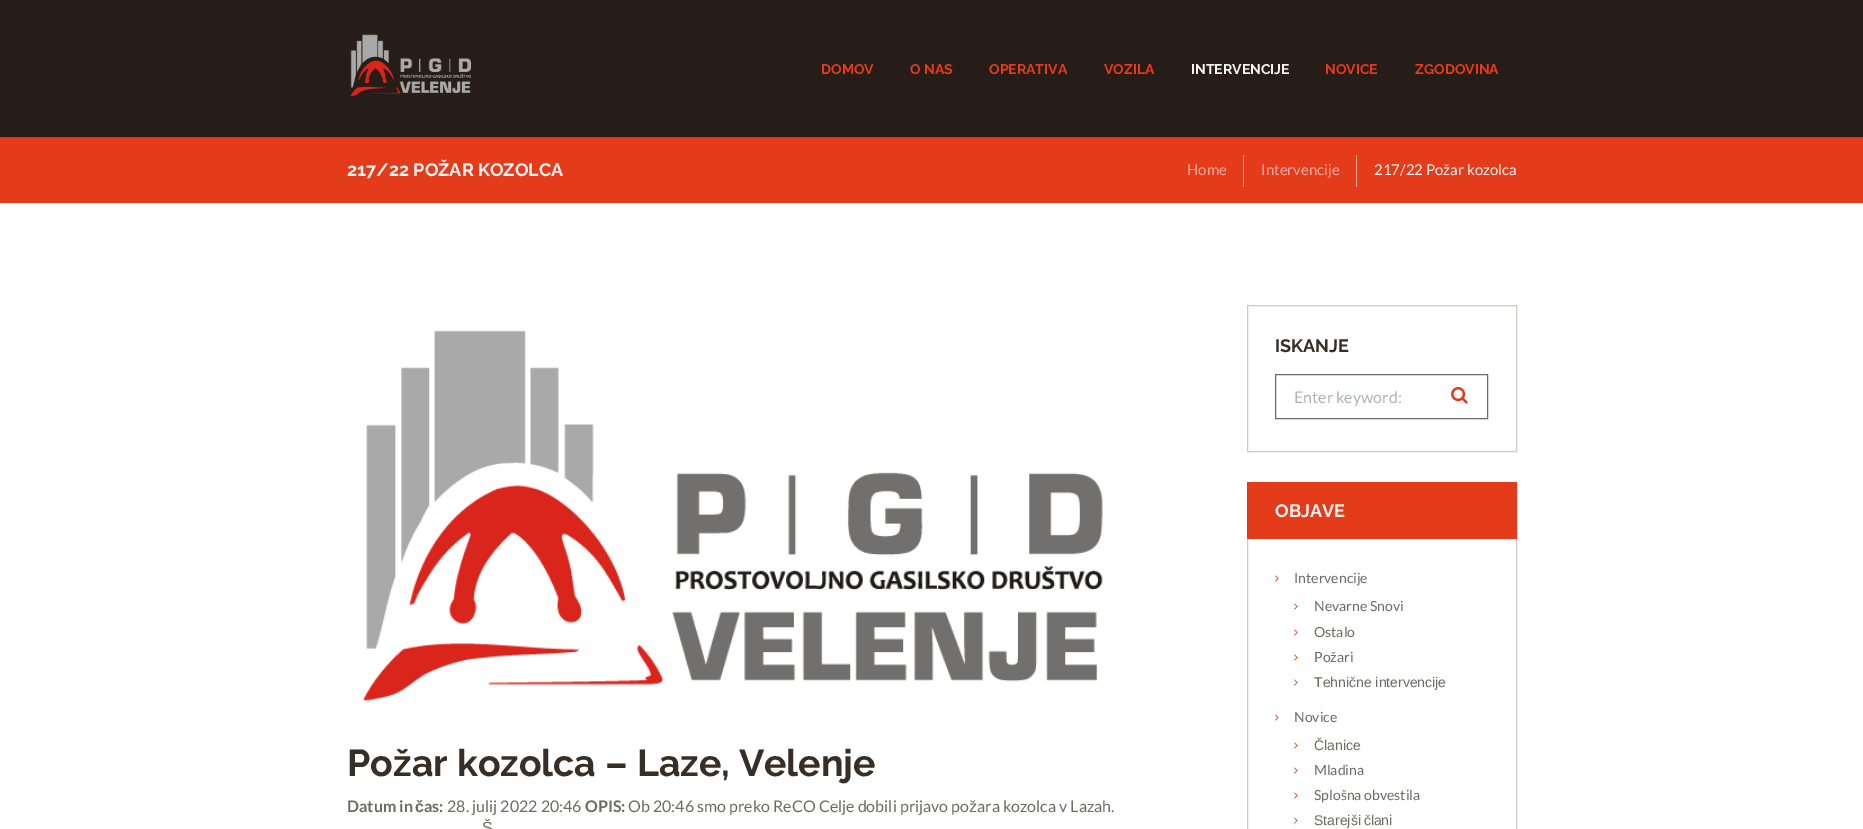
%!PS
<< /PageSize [1863 829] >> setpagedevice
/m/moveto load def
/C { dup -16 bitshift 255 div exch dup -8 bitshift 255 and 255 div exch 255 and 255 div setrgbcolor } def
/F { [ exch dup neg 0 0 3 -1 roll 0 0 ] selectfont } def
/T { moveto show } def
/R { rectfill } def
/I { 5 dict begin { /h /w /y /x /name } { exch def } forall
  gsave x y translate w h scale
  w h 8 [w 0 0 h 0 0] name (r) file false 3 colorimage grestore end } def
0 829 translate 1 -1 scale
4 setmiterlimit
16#FFFFFF C
0 0 1863 829 R
16#261C18 C
0 0 1863 137 R
(1.rgb) 350 34 122 63 I
/Raleway-Bold 14 F
16#E43B1B C
(DOMOV) 821 74 T
(O NAS) 910 74 T
(OPERATIVA) 989 74 T
(VOZILA) 1104 74 T
16#F4F4F4 C
(INTERVENCIJE) 1191 74 T
16#E43B1B C
(NOVICE) 1325 74 T
(ZGODOVINA) 1415 74 T
0 138 1863 65 R
16#CD3518 C
0 137 1863 1 R
/Raleway-Bold 18 F
16#F4F4F4 C
(217/22 POŽAR KOZOLCA) 347 176 T
/Lato-Regular 15 F
16#EEAA9D C
(Home) 1187 175 T
1243 155 1 32 R
(Intervencije) 1261 175 T
1356 155 1 32 R
16#F4F4F4 C
(217/22 Požar kozolca) 1374 175 T
(2.rgb) 363 330 740 371 I
/Raleway-Bold 37.5 F
16#382E26 C
(Požar kozolca – Laze, Velenje) 347 776 T
/Lato-Bold 16 F
16#6E6A67 C
(Datum in) 347 812 T
/LiberationSans-Bold 16 F
(č) 415 812 T
/Lato-Bold 16 F
(as:) 424 812 T
/Lato-Regular 16 F
(28. julij 2022 20:46) 447 812 T
/Lato-Bold 16 F
(OPIS:) 585 812 T
/Lato-Regular 16 F
(Ob 20:46 smo preko ReCO Celje dobili prijavo po) 628 812 T
/LiberationSans-Regular 16 F
(ž) 969 812 T
/Lato-Regular 16 F
(ara kozolca v Lazah.) 977 812 T
/LiberationSans-Regular 16 F
(Š) 482 833 T
16#CFC8C4 C
1247.5 305.5 269 146 rectstroke
/Raleway-Bold 18 F
16#382E26 C
(ISKANJE) 1275 352 T
16#6E6A67 C
1275.5 374.5 212 44 rectstroke
/Lato-Regular 16 F
16#ACB4B6 C
(Enter keyword:) 1294 403 T
(3.rgb) 1451 387 17 17 I
16#CFC8C4 C
1247.5 482.5 269 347 rectstroke
16#E43B1B C
1247 482 270 57 R
/Raleway-Bold 18 F
16#F4F4F4 C
(OBJAVE) 1275 517 T
(4.rgb) 1275 575 4 7 I
/Lato-Regular 14 F
16#6E6A67 C
(Intervencije) 1294 583 T
(4.rgb) 1294 603 4 7 I
(Nevarne Snovi) 1314 611 T
(4.rgb) 1294 629 4 7 I
(Ostalo) 1314 637 T
(4.rgb) 1294 654 4 7 I
(Požari) 1314 662 T
(4.rgb) 1294 679 4 7 I
/LiberationSans-Regular 14 F
(Tehnične intervencije) 1314 687 T
(4.rgb) 1275 714 4 7 I
/Lato-Regular 14 F
(Novice) 1294 722 T
(4.rgb) 1294 742 4 7 I
/LiberationSans-Regular 14 F
(Članice) 1314 750 T
(4.rgb) 1294 767 4 7 I
/Lato-Regular 14 F
(Mladina) 1314 775 T
(4.rgb) 1294 792 4 7 I
(Splošna obvestila) 1314 800 T
(4.rgb) 1294 817 4 7 I
/LiberationSans-Regular 14 F
1314 825 m -1 0 32 (Starejši člani) widthshow
showpage
